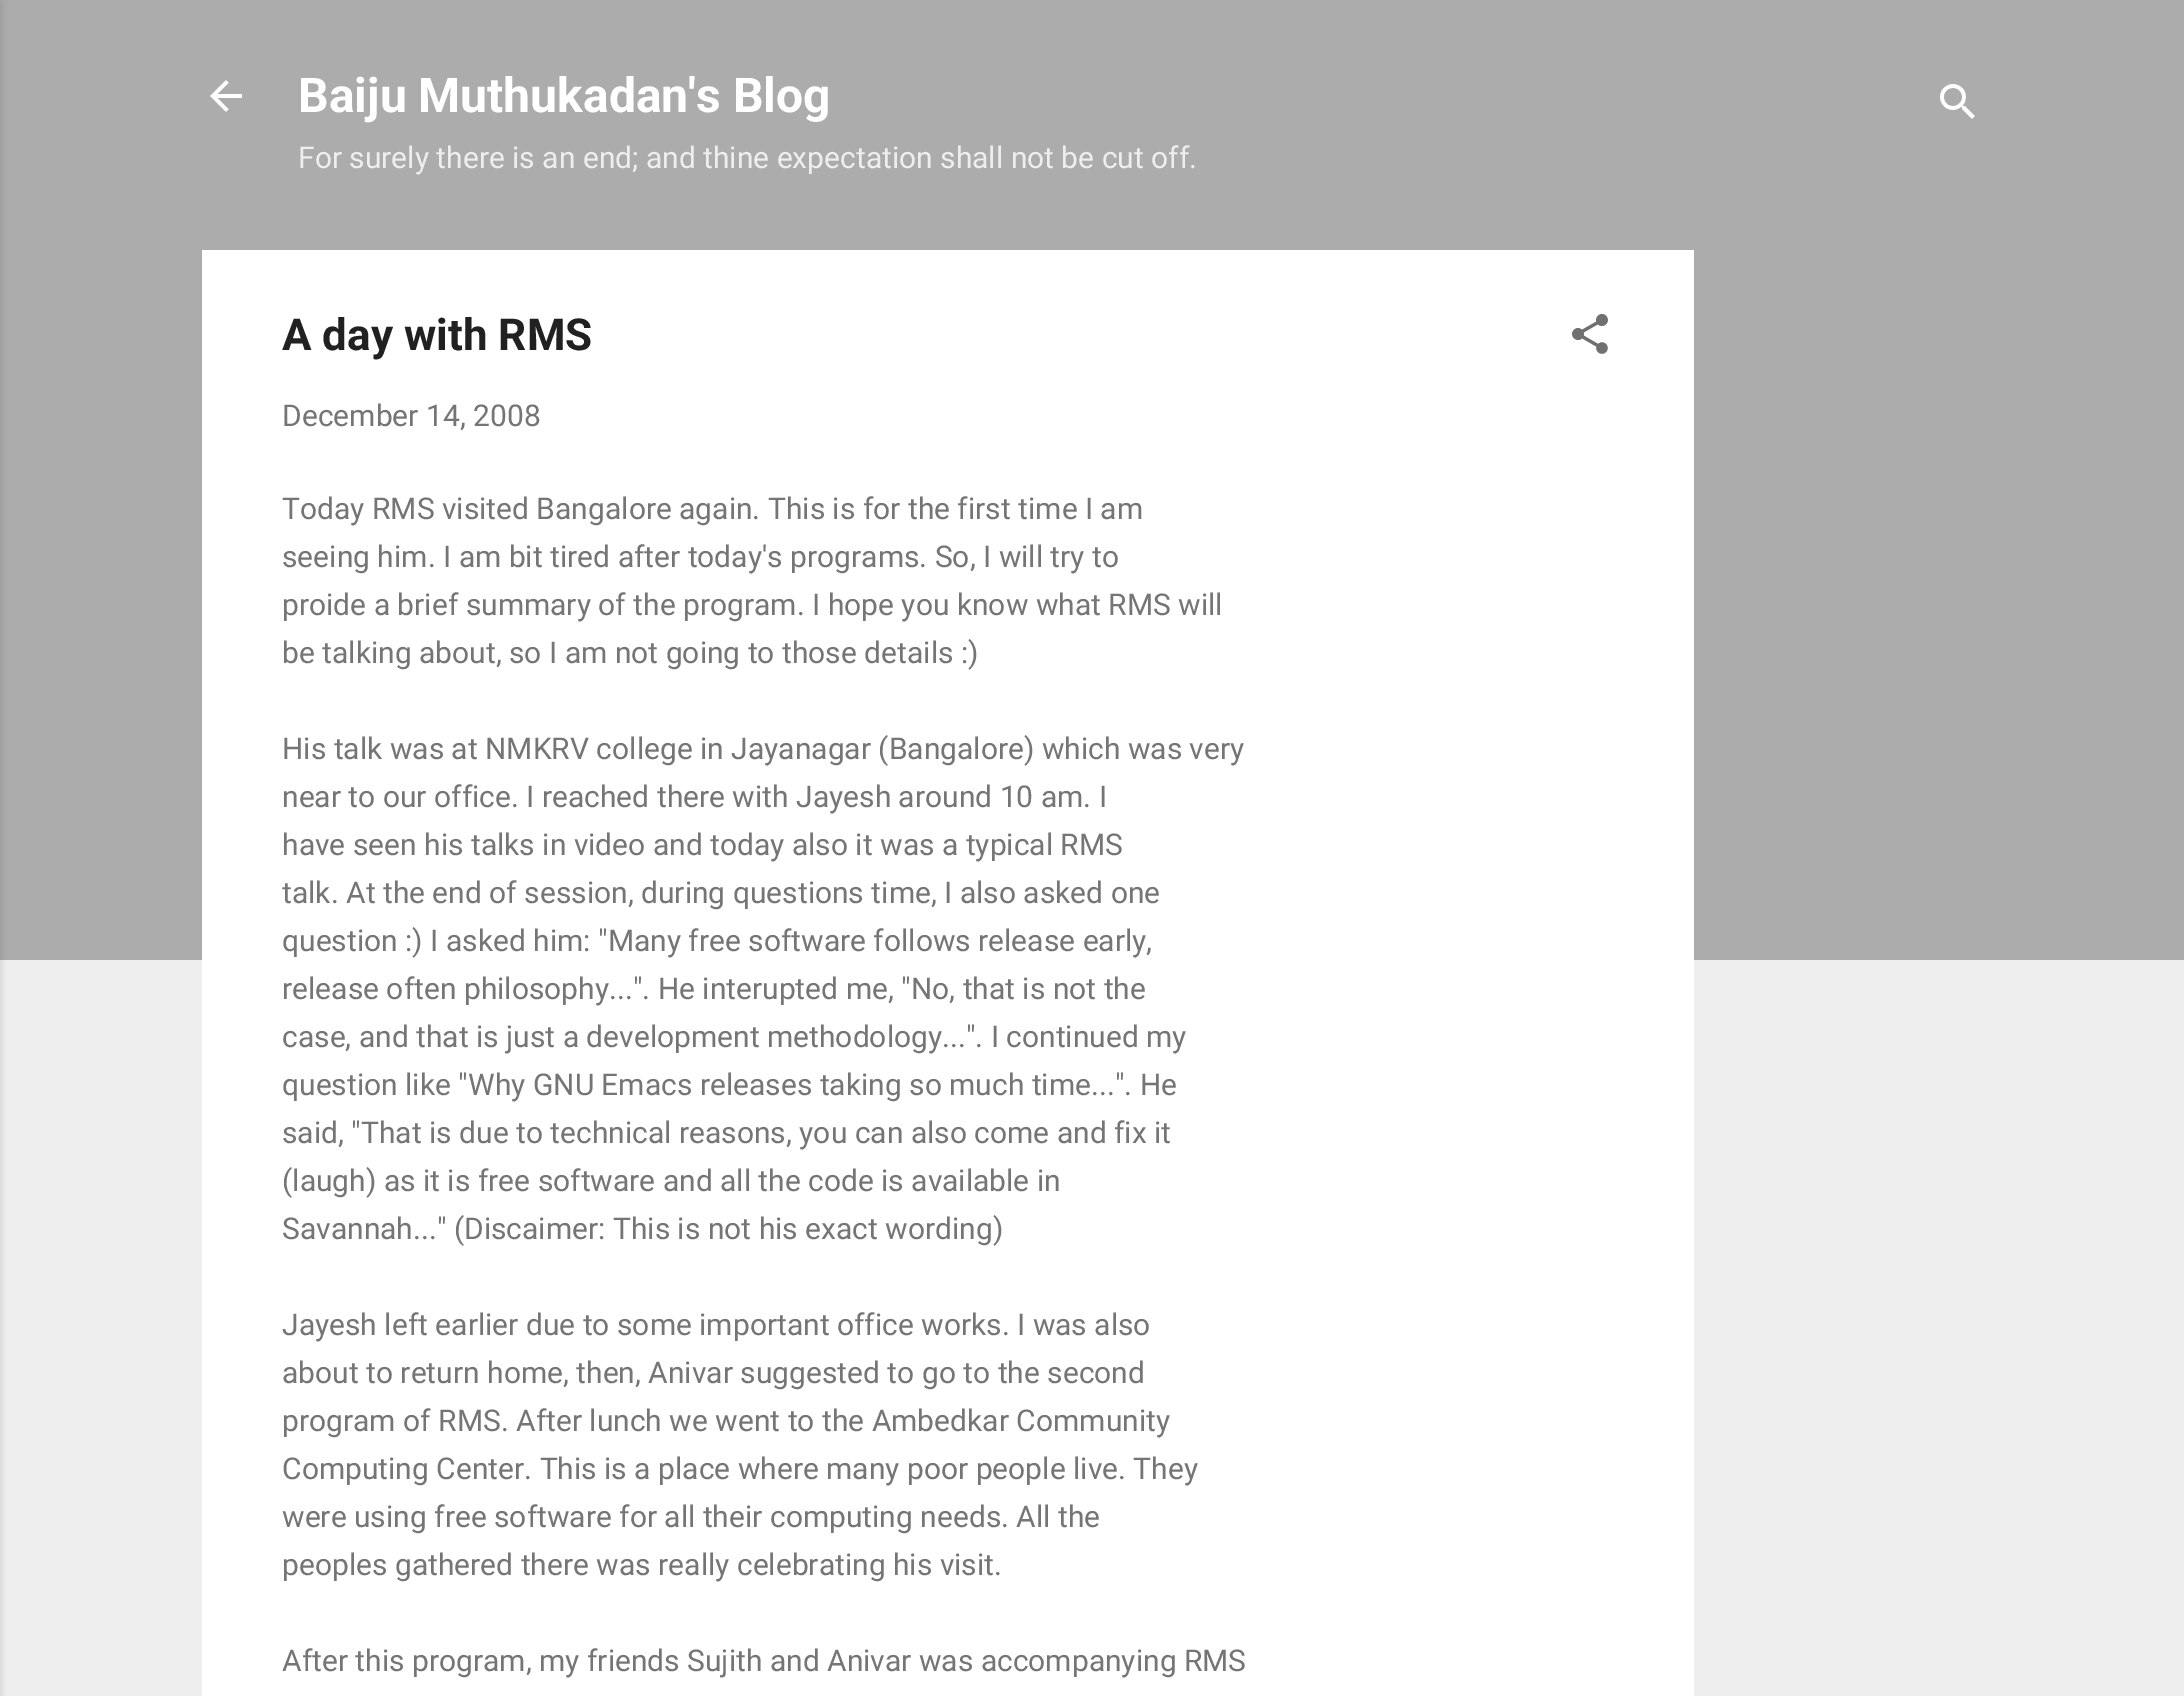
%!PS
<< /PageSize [2184 1696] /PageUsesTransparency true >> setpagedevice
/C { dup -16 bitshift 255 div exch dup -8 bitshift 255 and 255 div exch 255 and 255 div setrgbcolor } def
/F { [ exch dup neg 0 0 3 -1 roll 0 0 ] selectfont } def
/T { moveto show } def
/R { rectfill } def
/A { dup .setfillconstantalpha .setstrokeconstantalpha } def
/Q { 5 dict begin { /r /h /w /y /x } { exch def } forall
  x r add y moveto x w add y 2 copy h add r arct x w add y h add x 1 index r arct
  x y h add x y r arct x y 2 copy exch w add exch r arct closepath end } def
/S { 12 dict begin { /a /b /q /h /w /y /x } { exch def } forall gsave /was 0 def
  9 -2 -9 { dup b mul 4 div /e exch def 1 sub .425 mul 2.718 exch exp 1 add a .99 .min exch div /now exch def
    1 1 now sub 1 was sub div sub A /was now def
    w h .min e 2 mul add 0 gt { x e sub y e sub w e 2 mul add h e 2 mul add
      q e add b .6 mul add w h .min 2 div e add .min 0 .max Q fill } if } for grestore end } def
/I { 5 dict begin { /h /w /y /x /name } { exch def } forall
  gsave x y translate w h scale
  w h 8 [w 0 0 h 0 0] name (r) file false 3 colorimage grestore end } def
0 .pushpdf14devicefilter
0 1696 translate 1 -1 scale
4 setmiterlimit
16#EEEEEE C
0 0 2184 1696 R
16#ACACAC C
0 0 2184 960 R
16#000000 C
-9 2 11 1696 0 3 .1 S
(1.rgb) 210 80 32 32 I
/Roboto-Bold 48 F
16#FFFFFF C
(Baiju Muthukadan's Blog) 298 112 T
/Roboto-Regular 30 F
16#EEEEEE C
(For surely there is an end; and thine expectation shall not be cut off.) 298 168 T
(2.rgb) 1940 84 35 35 I
16#FFFFFF C
202 250 1492 1446 R
/Roboto-Bold 44 F
16#212121 C
(A day with RMS) 282 350 T
(3.rgb) 1572 314 36 40 I
/Roboto-Regular 30 F
16#757575 C
(December 14, 2008) 282 426 T
(Today RMS visited Bangalore again. This is for the first time I am) 282 519 T
(seeing him. I am bit tired after today's programs. So, I will try to) 282 567 T
(proide a brief summary of the program. I hope you know what RMS will) 282 615 T
(be talking about, so I am not going to those details :\)) 282 663 T
(His talk was at NMKRV college in Jayanagar \(Bangalore\) which was very) 282 759 T
(near to our office. I reached there with Jayesh around 10 am. I) 282 807 T
(have seen his talks in video and today also it was a typical RMS) 282 855 T
(talk. At the end of session, during questions time, I also asked one) 282 903 T
(question :\) I asked him: "Many free software follows release early,) 282 951 T
(release often philosophy...". He interupted me, "No, that is not the) 282 999 T
(case, and that is just a development methodology...". I continued my) 282 1047 T
(question like "Why GNU Emacs releases taking so much time...". He) 282 1095 T
(said, "That is due to technical reasons, you can also come and fix it) 282 1143 T
(\(laugh\) as it is free software and all the code is available in) 282 1191 T
(Savannah..." \(Discaimer: This is not his exact wording\)) 282 1239 T
(Jayesh left earlier due to some important office works. I was also) 282 1335 T
(about to return home, then, Anivar suggested to go to the second) 282 1383 T
(program of RMS. After lunch we went to the Ambedkar Community) 282 1431 T
(Computing Center. This is a place where many poor people live. They) 282 1479 T
(were using free software for all their computing needs. All the) 282 1527 T
(peoples gathered there was really celebrating his visit.) 282 1575 T
(After this program, my friends Sujith and Anivar was accompanying RMS) 282 1671 T
.poppdf14devicefilter showpage
